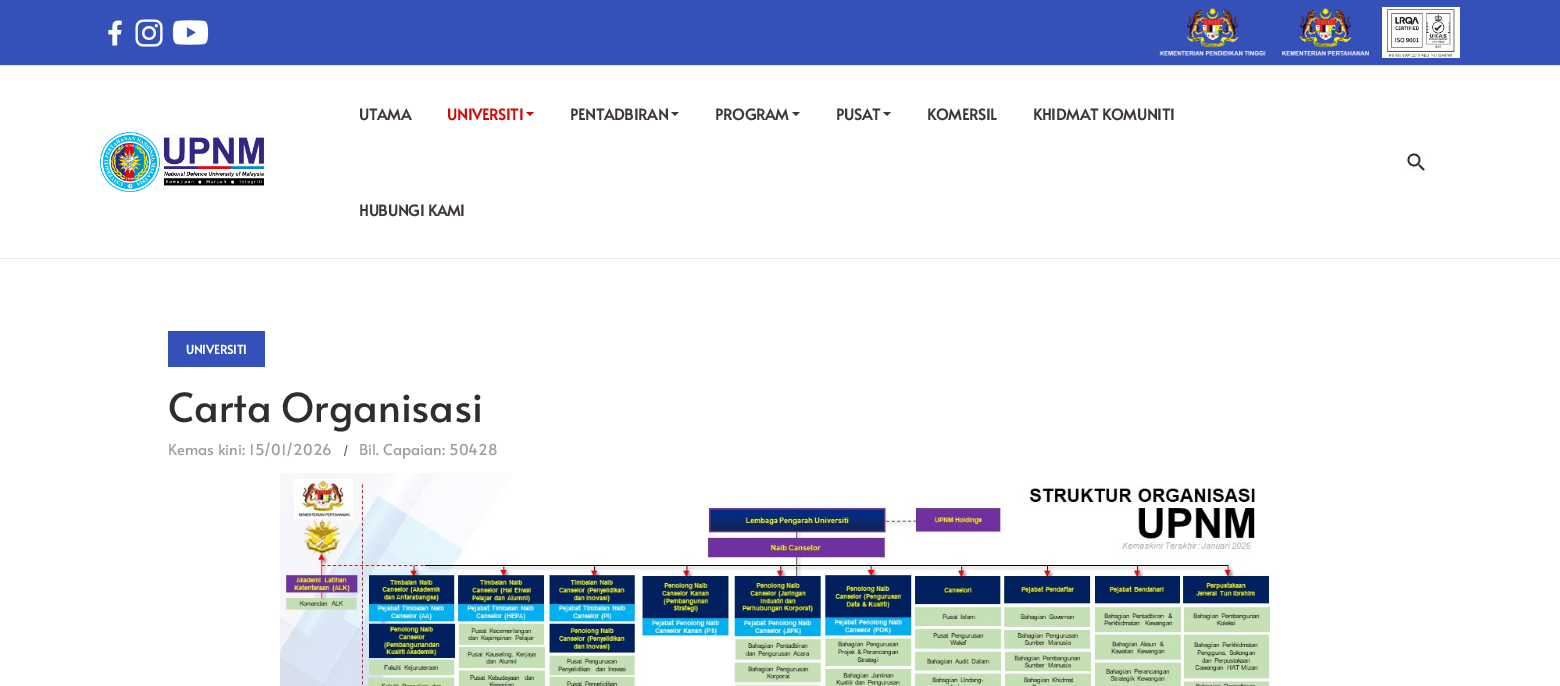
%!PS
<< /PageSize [1560 686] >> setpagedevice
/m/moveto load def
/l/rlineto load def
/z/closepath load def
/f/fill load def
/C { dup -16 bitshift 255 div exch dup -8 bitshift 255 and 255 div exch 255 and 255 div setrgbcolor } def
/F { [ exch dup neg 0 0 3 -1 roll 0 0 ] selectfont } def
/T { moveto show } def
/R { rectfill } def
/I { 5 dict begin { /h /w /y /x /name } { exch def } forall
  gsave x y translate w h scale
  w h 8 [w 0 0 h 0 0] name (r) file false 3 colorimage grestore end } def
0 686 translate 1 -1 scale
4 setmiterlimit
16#FFFFFF C
0 0 1560 686 R
16#EBEBEB C
0 258 1560 1 R
16#3450B9 C
0 0 1560 65 R
16#EBEBEB C
0 65 1560 1 R
(1.rgb) 108 20 14 26 I
(2.rgb) 135 19 28 28 I
(3.rgb) 172 20 37 25 I
(4.rgb) 1159 7 107 49 I
(5.rgb) 1282 7 87 49 I
(6.rgb) 1382 7 78 51 I
(7.rgb) 100 132 164 60 I
/Alata-Bold 15 F
16#3F3836 C
(UTAMA) 359 120 T
16#D60808 C
(UNIVERSITI) 447 120 T
526 112 m 8 0 l -4 4 l z f
16#3F3836 C
(PENTADBIRAN) 570 120 T
671 112 m 8 0 l -4 4 l z f
(PROGRAM) 715 120 T
792 112 m 8 0 l -4 4 l z f
(PUSAT) 836 120 T
883 112 m 8 0 l -4 4 l z f
(KOMERSIL) 927 120 T
(KHIDMAT KOMUNITI) 1033 120 T
(HUBUNGI KAMI) 359 216 T
(8.rgb) 1407 153 18 18 I
16#3450B9 C
168 331 97 36 R
/Alata-Bold 12 F
16#FFFFFF C
(UNIVERSITI) 186 354 T
/Alata-Regular 40 F
16#2E2E2E C
(Carta Organisasi) 168 422 T
/Alata-Regular 15 F
16#9E9E9E C
(Kemas kini: 15/01/2026) 168 455 T
/Alata-Regular 12 F
16#585858 C
(/) 343 455 T
/Alata-Regular 15 F
16#9E9E9E C
(Bil. Capaian: 50428) 359 455 T
(9.rgb) 280 473 1000 213 I
showpage
